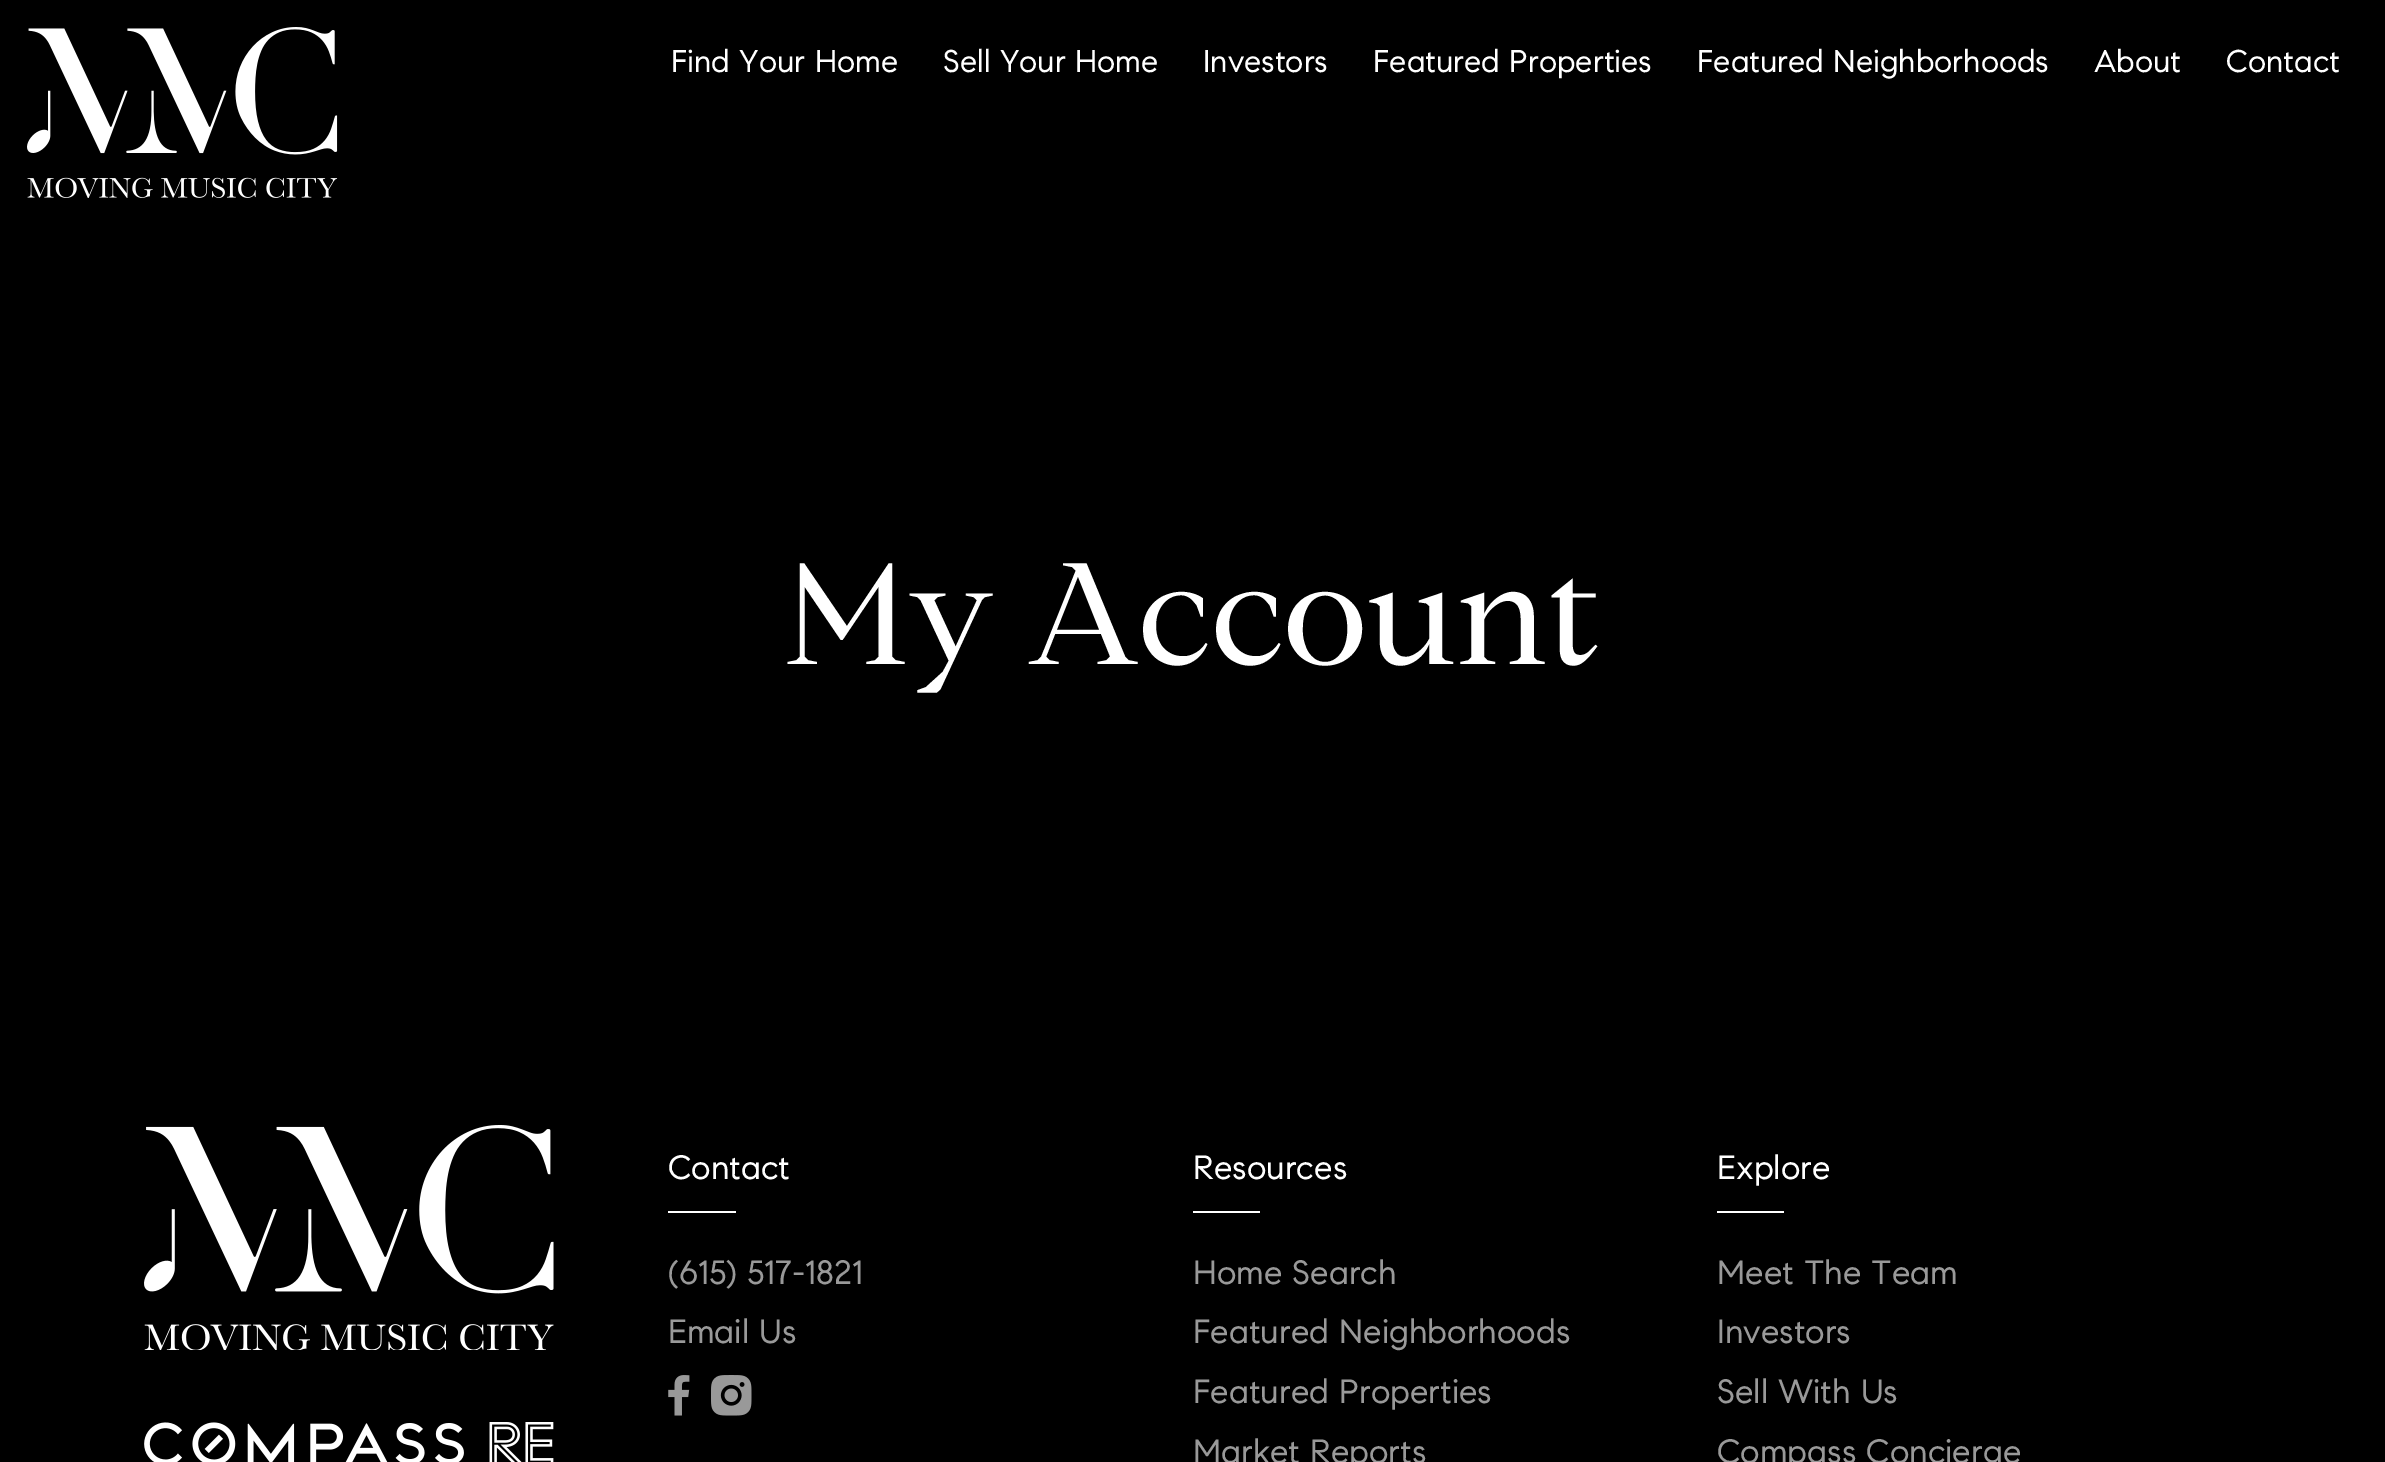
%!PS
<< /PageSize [2385 1462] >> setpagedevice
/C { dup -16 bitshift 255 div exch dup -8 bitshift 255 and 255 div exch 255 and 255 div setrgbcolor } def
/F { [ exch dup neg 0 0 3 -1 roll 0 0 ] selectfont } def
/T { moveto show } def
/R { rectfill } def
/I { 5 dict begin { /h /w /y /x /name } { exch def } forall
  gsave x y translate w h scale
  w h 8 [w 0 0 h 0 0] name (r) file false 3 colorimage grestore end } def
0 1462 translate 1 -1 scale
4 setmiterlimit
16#000000 C
0 0 2385 1462 R
(1.rgb) 27 27 311 171 I
/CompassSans-Regular 31.5 F
16#FFFFFF C
(Find Your Home) 671 72 T
(Sell Your Home) 943 72 T
(Investors) 1203 72 T
(Featured Properties) 1373 72 T
(Featured Neighborhoods) 1697 72 T
(About) 2094 72 T
(Contact) 2226 72 T
/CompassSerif-Regular 144 F
(My Account) 784 664 T
(2.rgb) 144 1125 410 225 I
(3.rgb) 144 1422 410 40 I
/CompassSans-Regular 33.75 F
(Contact) 668 1179 T
668 1211 68 2 R
16#999999 C
(\(615\) 517-1821) 668 1284 T
(Email Us) 668 1343 T
(4.rgb) 668 1375 22 41 I
(5.rgb) 711 1375 41 41 I
16#FFFFFF C
(Resources) 1193 1179 T
1193 1211 67 2 R
16#999999 C
(Home Search) 1193 1284 T
(Featured Neighborhoods) 1193 1343 T
(Featured Properties) 1193 1403 T
(Market Reports) 1193 1463 T
16#FFFFFF C
(Explore) 1717 1179 T
1717 1211 67 2 R
16#999999 C
(Meet The Team) 1717 1284 T
(Investors) 1717 1343 T
(Sell With Us) 1717 1403 T
(Compass Concierge) 1717 1463 T
showpage
